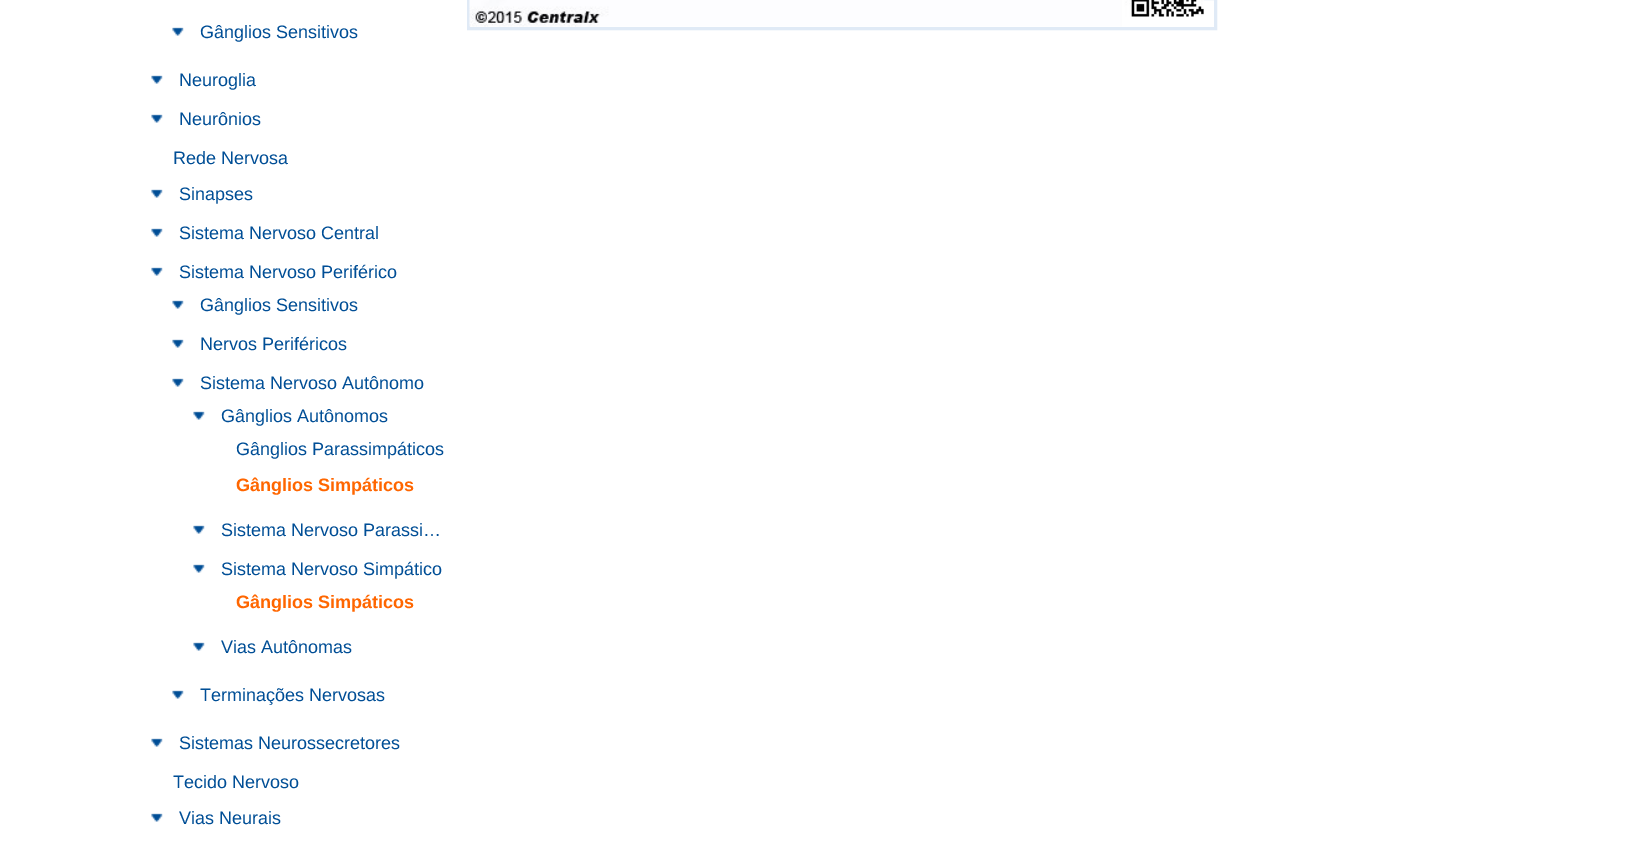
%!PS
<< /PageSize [1637 854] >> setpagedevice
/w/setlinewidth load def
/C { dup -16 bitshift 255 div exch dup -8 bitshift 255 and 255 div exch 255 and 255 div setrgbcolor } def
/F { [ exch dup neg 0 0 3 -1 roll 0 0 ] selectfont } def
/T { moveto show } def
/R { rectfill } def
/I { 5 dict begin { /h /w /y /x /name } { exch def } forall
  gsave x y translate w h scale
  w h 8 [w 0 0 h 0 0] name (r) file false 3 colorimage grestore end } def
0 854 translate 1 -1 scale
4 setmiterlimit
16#FFFFFF C
0 0 1637 854 R
16#E0EAF6 C
3 w
468.5 -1.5 747 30 rectstroke
(1.rgb) 469 0 735 27 I
(2.rgb) 172 27 12 9 I
/LiberationSans-Regular 18 F
16#004E96 C
(Gânglios Sensitivos) 200 38 T
(2.rgb) 151 75 12 9 I
(Neuroglia) 179 86 T
(2.rgb) 151 114 12 9 I
(Neurônios) 179 125 T
(Rede Nervosa) 173 164 T
(2.rgb) 151 189 12 9 I
(Sinapses) 179 200 T
(2.rgb) 151 228 12 9 I
(Sistema Nervoso Central) 179 239 T
(2.rgb) 151 267 12 9 I
(Sistema Nervoso Periférico) 179 278 T
(2.rgb) 172 300 12 9 I
(Gânglios Sensitivos) 200 311 T
(2.rgb) 172 339 12 9 I
(Nervos Periféricos) 200 350 T
(2.rgb) 172 378 12 9 I
(Sistema Nervoso Autônomo) 200 389 T
(2.rgb) 193 411 12 9 I
(Gânglios Autônomos) 221 422 T
(Gânglios Parassimpáticos) 236 455 T
/LiberationSans-Bold 18 F
16#FF6600 C
(Gânglios Simpáticos) 236 491 T
(2.rgb) 193 525 12 9 I
/LiberationSans-Regular 18 F
16#004E96 C
(Sistema Nervoso Parassi…) 221 536 T
(2.rgb) 193 564 12 9 I
(Sistema Nervoso Simpático) 221 575 T
/LiberationSans-Bold 18 F
16#FF6600 C
(Gânglios Simpáticos) 236 608 T
(2.rgb) 193 642 12 9 I
/LiberationSans-Regular 18 F
16#004E96 C
(Vias Autônomas) 221 653 T
(2.rgb) 172 690 12 9 I
(Terminações Nervosas) 200 701 T
(2.rgb) 151 738 12 9 I
(Sistemas Neurossecretores) 179 749 T
(Tecido Nervoso) 173 788 T
(2.rgb) 151 813 12 9 I
(Vias Neurais) 179 824 T
showpage
